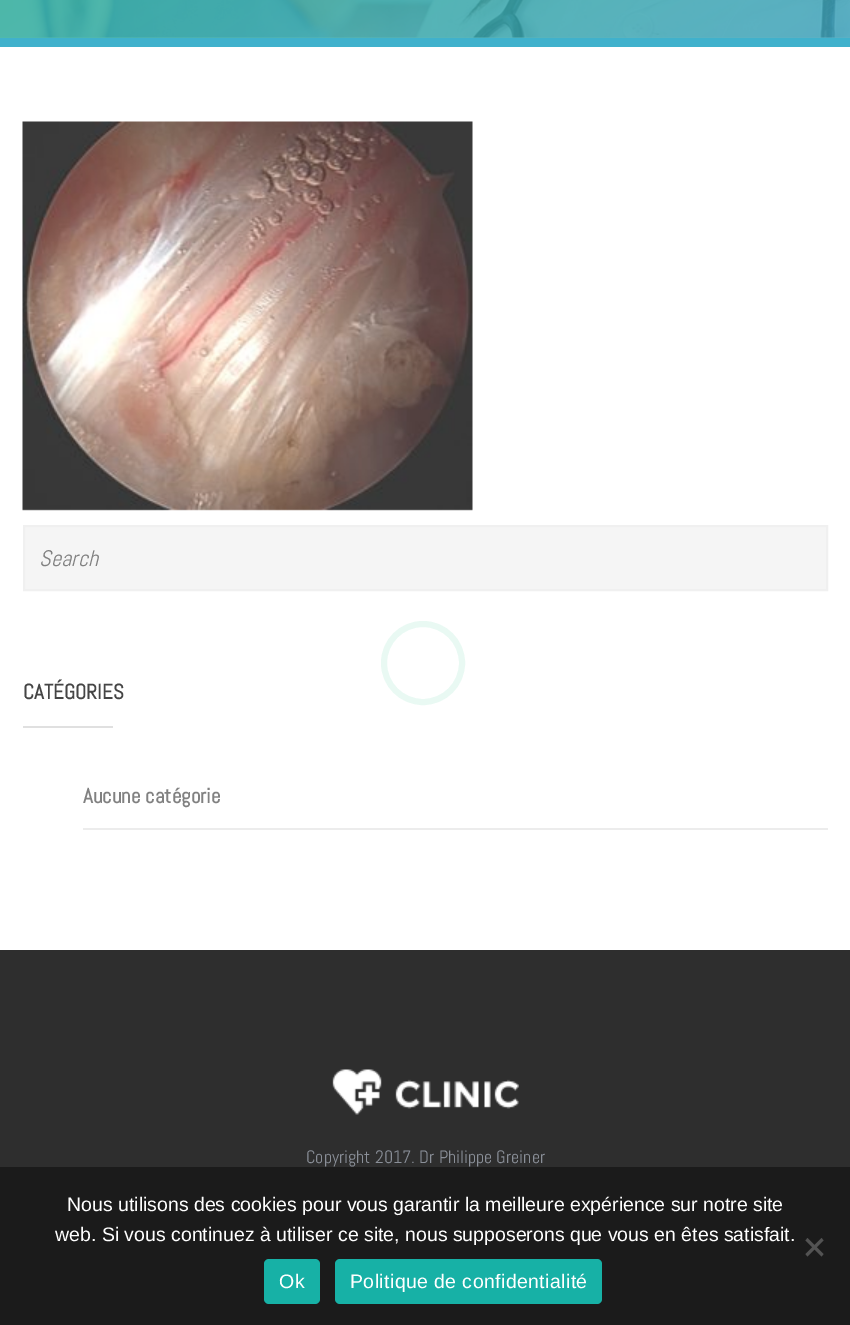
%!PS
<< /PageSize [850 1325] /PageUsesTransparency true >> setpagedevice
/m/moveto load def
/l/rlineto load def
/z/closepath load def
/f/fill load def
/s/stroke load def
/q/gsave load def
/Q_/grestore load def
/w/setlinewidth load def
/C { dup -16 bitshift 255 div exch dup -8 bitshift 255 and 255 div exch 255 and 255 div setrgbcolor } def
/F { [ exch dup neg 0 0 3 -1 roll 0 0 ] selectfont } def
/T { moveto show } def
/R { rectfill } def
/A { dup .setfillconstantalpha .setstrokeconstantalpha } def
/O { newpath 0 360 arc closepath } def
/Q { 5 dict begin { /r /h /w /y /x } { exch def } forall
  x r add y moveto x w add y 2 copy h add r arct x w add y h add x 1 index r arct
  x y h add x y r arct x y 2 copy exch w add exch r arct closepath end } def
/I { 5 dict begin { /h /w /y /x /name } { exch def } forall
  gsave x y translate w h scale
  w h 8 [w 0 0 h 0 0] name (r) file false 3 colorimage grestore end } def
0 .pushpdf14devicefilter
0 1325 translate 1 -1 scale
4 setmiterlimit
16#FFFFFF C
0 0 850 1325 R
16#EDEDED C
0 0 850 38 R
(1.rgb) 0 0 850 38 I
16#40B1CC C
0 38 850 9 R
0.8 A
q 0 0 m 850 0 l 0 38 l -850 0 l z clip newpath
<< /ShadingType 2 /ColorSpace /DeviceRGB /Coords [669 153 182 -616] /Extend [true true] /Function << /FunctionType 2 /Domain [0 1] /C0 [.235 .643 .741] /C1 [.114 .725 .49] /N 1 >> >> shfill Q_
1 A
(2.rgb) 22 121 451 390 I
16#F5F5F5 C
24 526 m 803 0 l 0 64 l -803 0 l z q f Q_
16#F0F0F0 C
2 w
s
/Abel-Italic 22.5 F
16#818181 C
(Search) 39 566 T
/Abel-Bold 21 F
16#454545 C
(CATÉGORIES) 23 699 T
16#E0E0E0 C
23 726 90 2 R
16#ECECEC C
83 828 745 2 R
16#818181 C
(Aucune catégorie) 83 803 T
16#2E2E2E C
0 950 850 217 R
16#1B1B1B C
0 1167 850 158 R
(3.rgb) 332 1069 187 46 I
/Abel-Regular 18 F
16#8A8F98 C
(Copyright 2017. Dr Philippe Greiner) 306 1163 T
16#E9F9F3 C
6 w
423 663 39 O s
/LiberationSans-Regular 19.5 F
16#FFFFFF C
(Nous utilisons des cookies pour vous garantir la meilleure expérience sur notre site) 67 1211 T
(web. Si vous continuez à utiliser ce site, nous supposerons que vous en êtes satisfait.) 55 1241 T
16#535353 C
821.5 1238 m 2 2.5 l -16 16 l -2 -2.5 l z f
805.5 1240.5 m 2 -2.5 l 16 16 l -2 2.5 l z f
16#17B1A6 C
264 1259 56 45 5 Q f
16#FFFFFF C
279 1288 m .4 0 (Ok) ashow
16#17B1A6 C
335 1259 267 45 5 Q f
16#FFFFFF C
350 1288 m .4 0 (Politique de confidentialité) ashow
.poppdf14devicefilter showpage
